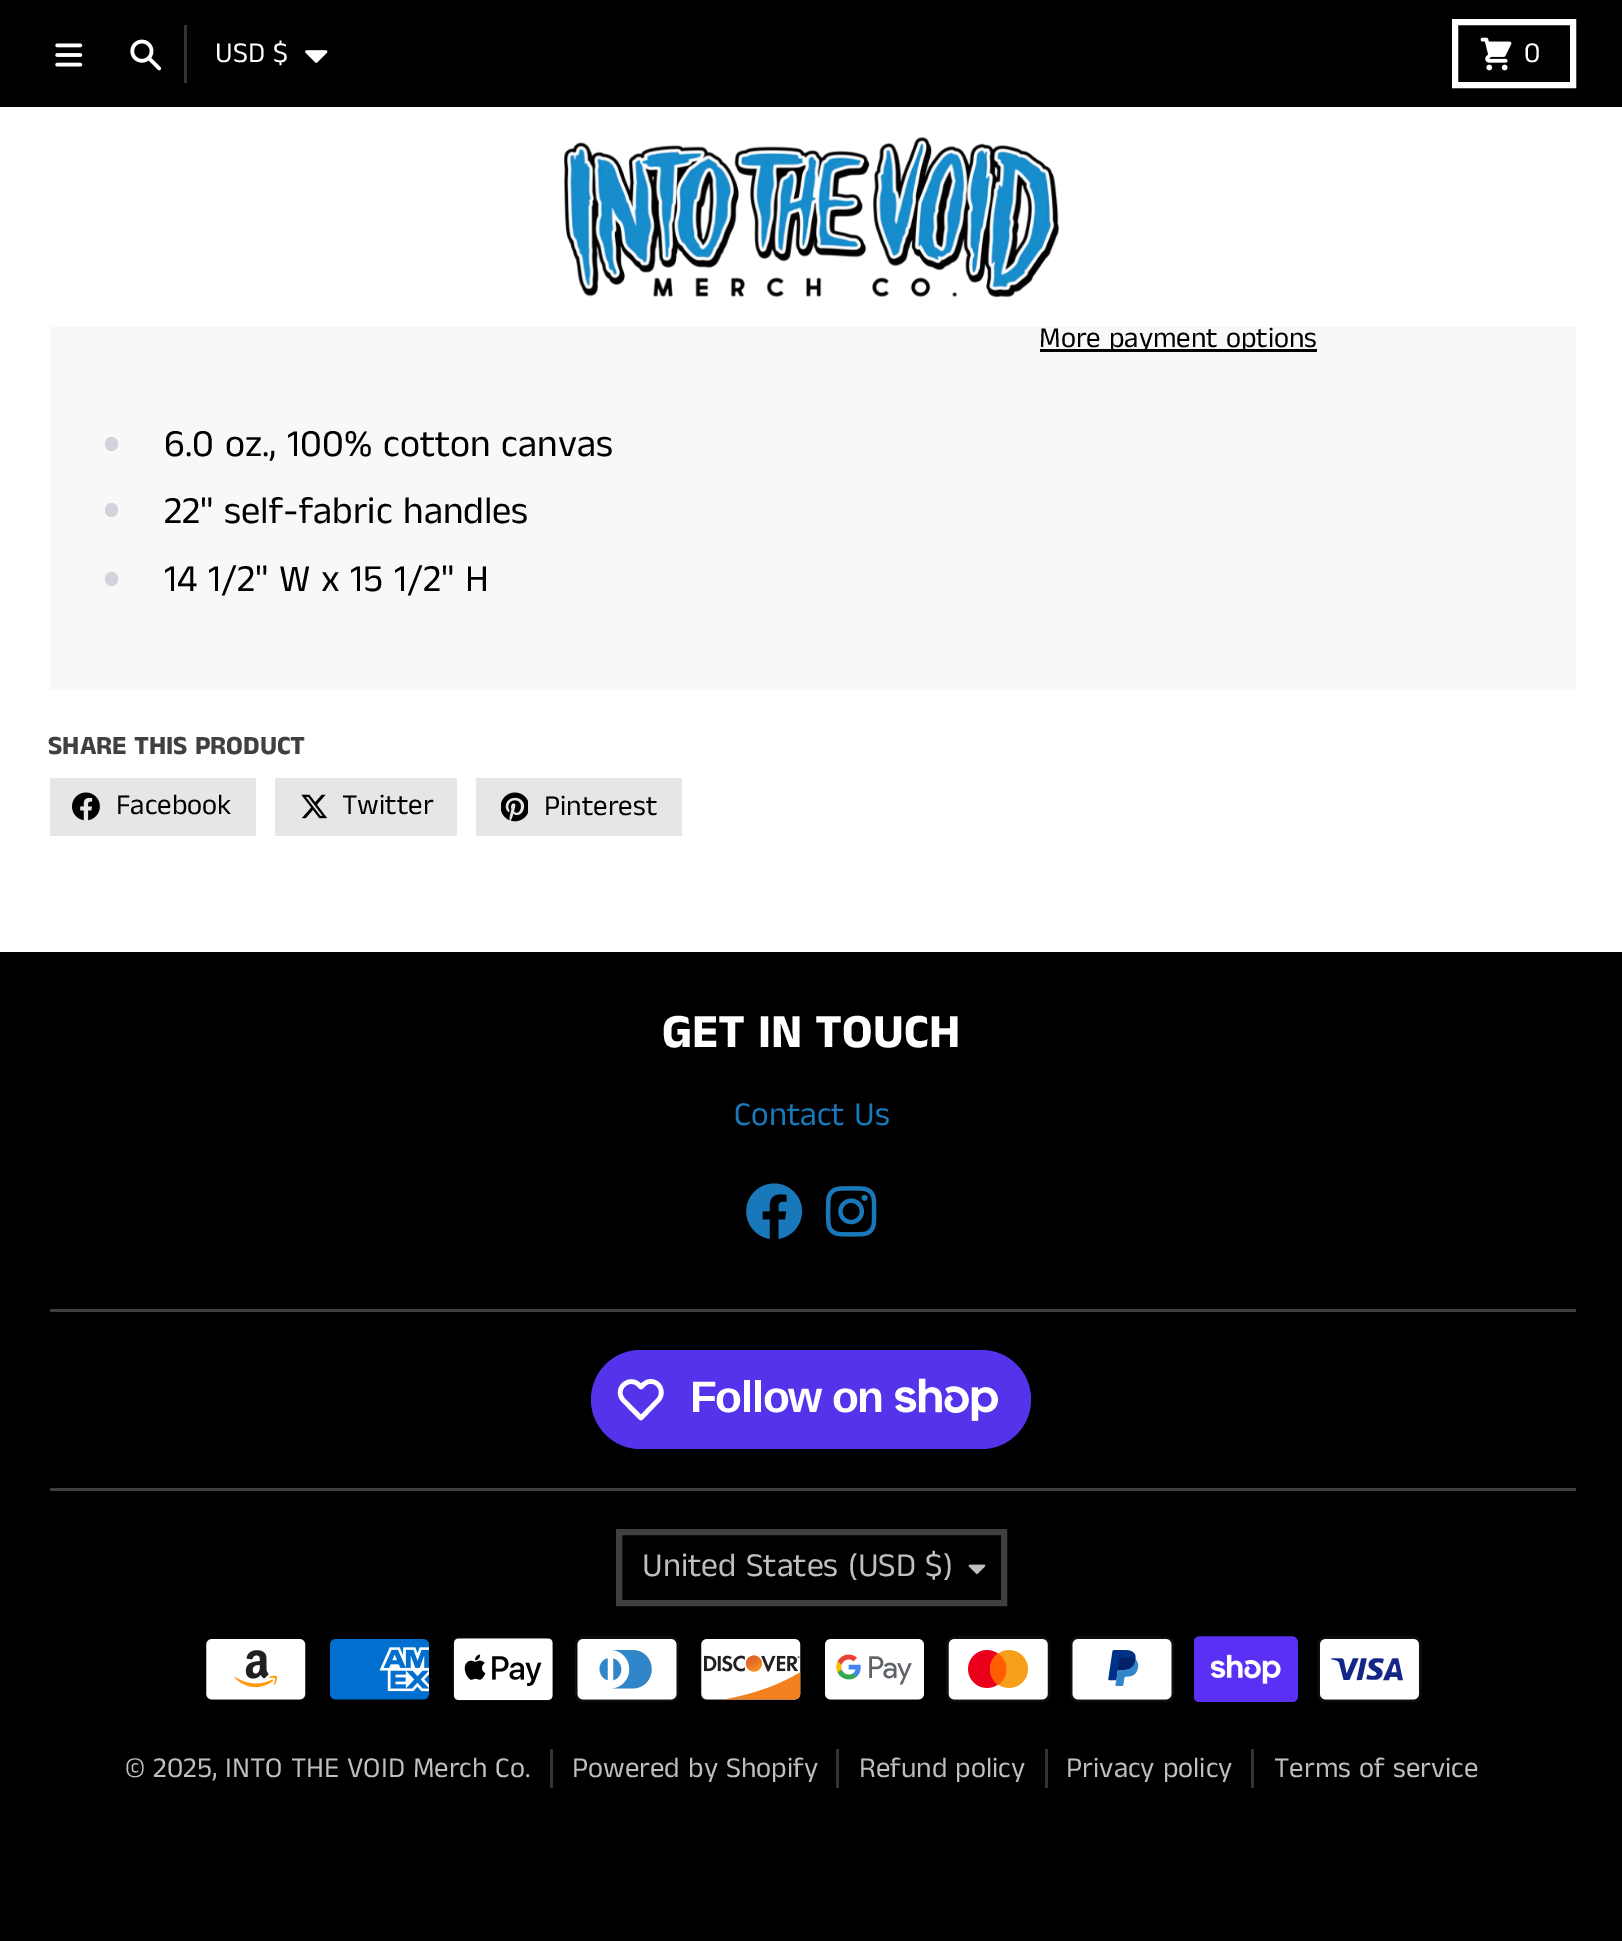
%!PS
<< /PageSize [1622 1941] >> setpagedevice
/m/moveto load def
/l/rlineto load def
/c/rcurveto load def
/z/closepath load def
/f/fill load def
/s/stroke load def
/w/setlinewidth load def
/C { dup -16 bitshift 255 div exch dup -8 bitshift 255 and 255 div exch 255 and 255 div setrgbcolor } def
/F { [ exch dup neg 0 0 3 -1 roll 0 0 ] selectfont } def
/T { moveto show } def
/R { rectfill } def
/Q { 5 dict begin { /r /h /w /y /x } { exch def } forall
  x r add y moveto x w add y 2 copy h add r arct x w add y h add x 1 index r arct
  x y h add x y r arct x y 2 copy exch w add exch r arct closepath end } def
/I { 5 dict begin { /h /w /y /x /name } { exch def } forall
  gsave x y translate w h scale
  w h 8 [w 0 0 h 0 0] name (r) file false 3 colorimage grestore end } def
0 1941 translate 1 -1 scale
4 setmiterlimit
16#000000 C
0 0 1622 1941 R
(1.rgb) 55 43 28 24 I
(2.rgb) 130 39 32 32 I
16#333333 C
184 25 3 58 R
/AnekTamil-Regular 28.9 F
16#FFFFFF C
(USD $) 215 62 T
(3.rgb) 305 50 23 13 I
6 w
1455 22 118 63 rectstroke
(4.rgb) 1480 37 32 34 I
(0) 1524 62 T
0 107 1622 845 R
(5.rgb) 564 137 495 161 I
16#F8F8F8 C
50 327 1526 363 R
16#000000 C
1040 349 277 3 R
(More payment options) 1039 347 T
16#D1D5DB C
105 437 13 14 6.5 Q f
/AnekTamil-Regular 38.5 F
16#000000 C
(6.0 oz., 100% cotton canvas) 164 456 T
16#D1D5DB C
105 503 13 14 6.5 Q f
16#000000 C
(22" self-fabric handles) 164 523 T
16#D1D5DB C
105 572 13 14 6.5 Q f
16#000000 C
(14 1/2" W x 15 1/2" H) 164 591 T
/AnekTamil-Bold 26.5 F
16#404040 C
(SHARE THIS PRODUCT) 48 754 T
16#E6E6E6 C
50 778 206 58 R
(6.rgb) 72 792 28 29 I
/AnekTamil-Regular 28.9 F
16#000000 C
(Facebook) 116 814 T
16#E6E6E6 C
275 778 182 58 R
(7.rgb) 301 794 26 25 I
16#000000 C
(Twitter) 342 814 T
16#E6E6E6 C
476 778 206 58 R
(8.rgb) 501 792 27 30 I
16#000000 C
(Pinterest) 544 815 T
/AnekTamil-Bold 48 F
16#FFFFFF C
(GET IN TOUCH) 662 1047 T
/AnekTamil-Regular 33.75 F
16#1878B9 C
(Contact Us) 734 1125 T
(9.rgb) 746 1183 57 56 I
(10.rgb) 825 1186 52 51 I
16#404040 C
50 1309 1526 3 R
16#5433EB C
591 1350 440 99 49.5 Q f
16#FFFFFF C
4.6 w
1 setlinejoin
638.5 1384.5 m 2.5 2.5 l 2 -2 3.5 -4 6.5 -5 c 8.5 -3 16.5 6 13 14.5 c -1.5 4 -5.5 6.5 -8 9.5 c -11.5 12 l -12 -12 l -2.5 -3 -6.5 -5.5 -8 -9.5 c -4.5 -10.5 9.5 -20 17.5 -12 c z s
/LiberationSans-Bold 44 F
690 1412 m -1.4 0 (Follow on) ashow
(11.rgb) 895 1378 103 43 I
16#404040 C
50 1488 1526 3 R
6 w
0 setlinejoin
619 1532 385 71 rectstroke
/AnekTamil-Regular 33.75 F
16#BFBFBF C
(United States \(USD $\)) 642 1576 T
(12.rgb) 968 1564 18 11 I
(13.rgb) 206 1639 100 61 I
(14.rgb) 330 1639 99 61 I
(15.rgb) 453 1638 100 63 I
(16.rgb) 575 1636 104 66 I
(17.rgb) 701 1639 100 61 I
(18.rgb) 825 1639 99 61 I
(19.rgb) 946 1636 105 66 I
(20.rgb) 1070 1636 104 66 I
(21.rgb) 1194 1636 104 66 I
(22.rgb) 1317 1636 105 66 I
/AnekTamil-Regular 28.9 F
(© 2025, INTO THE VOID Merch Co.) 125 1777 T
16#333333 C
550 1749 3 39 R
16#BFBFBF C
(Powered by Shopify) 572 1777 T
16#333333 C
836 1749 3 39 R
16#BFBFBF C
(Refund policy) 859 1777 T
16#333333 C
1045 1749 3 39 R
16#BFBFBF C
(Privacy policy) 1066 1777 T
16#333333 C
1251 1749 3 39 R
16#BFBFBF C
(Terms of service) 1274 1777 T
showpage
